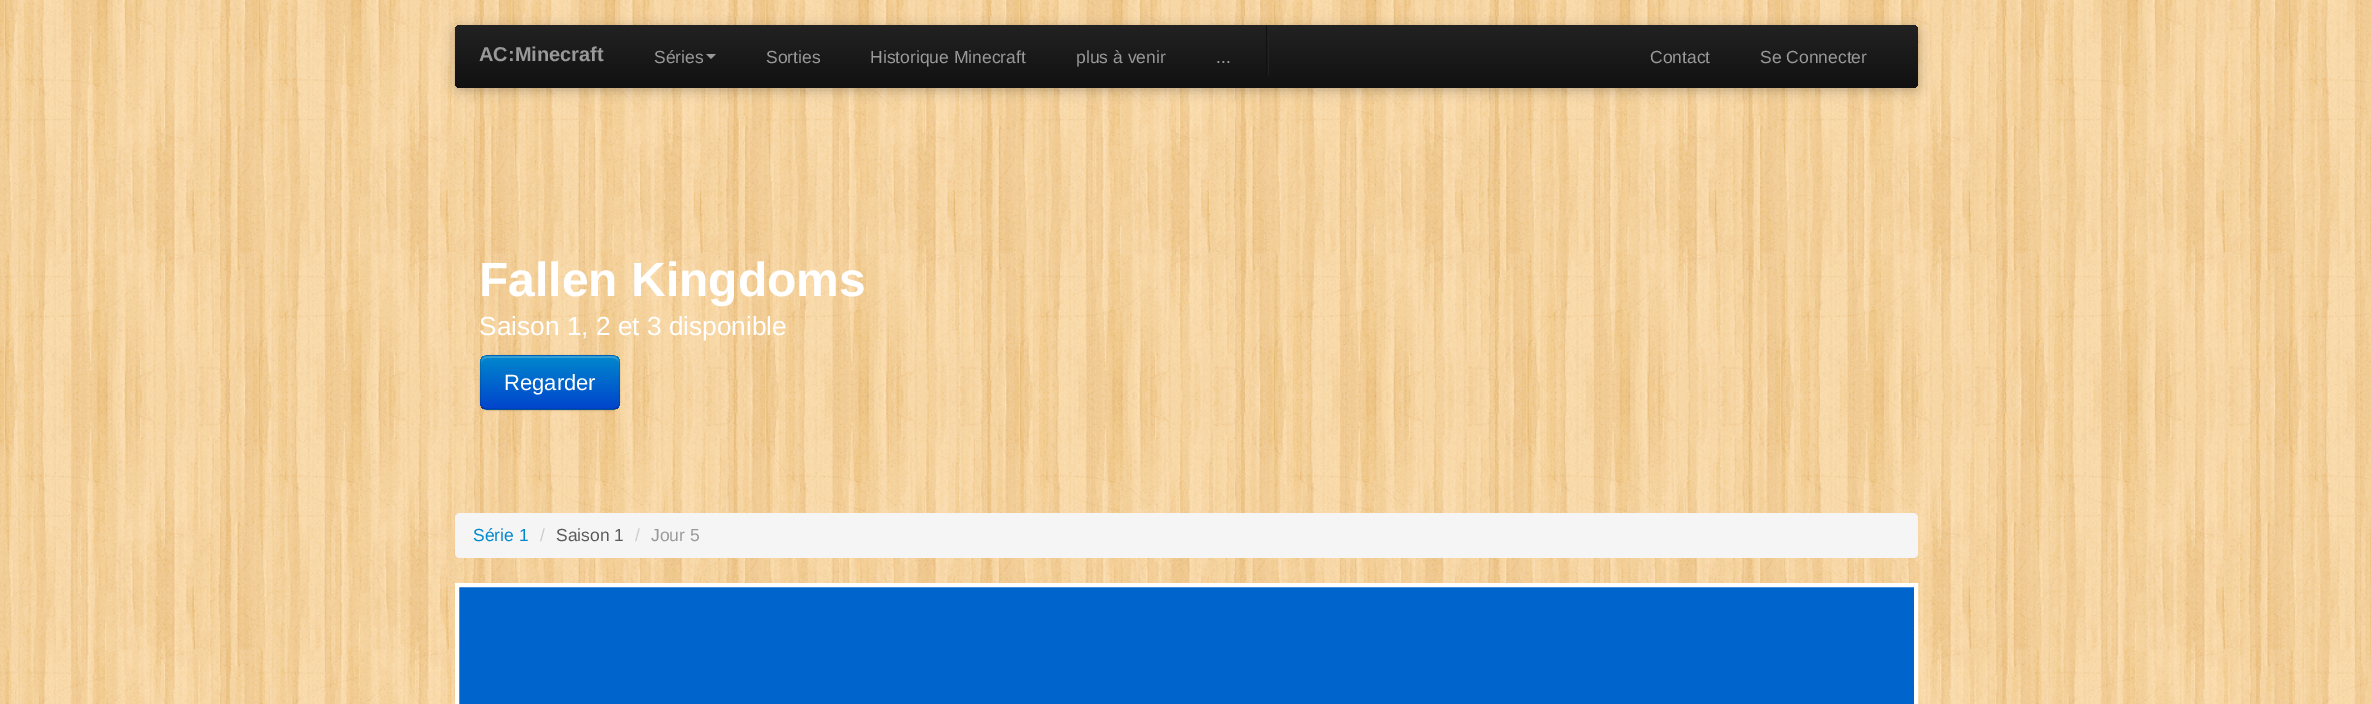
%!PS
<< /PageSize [2371 704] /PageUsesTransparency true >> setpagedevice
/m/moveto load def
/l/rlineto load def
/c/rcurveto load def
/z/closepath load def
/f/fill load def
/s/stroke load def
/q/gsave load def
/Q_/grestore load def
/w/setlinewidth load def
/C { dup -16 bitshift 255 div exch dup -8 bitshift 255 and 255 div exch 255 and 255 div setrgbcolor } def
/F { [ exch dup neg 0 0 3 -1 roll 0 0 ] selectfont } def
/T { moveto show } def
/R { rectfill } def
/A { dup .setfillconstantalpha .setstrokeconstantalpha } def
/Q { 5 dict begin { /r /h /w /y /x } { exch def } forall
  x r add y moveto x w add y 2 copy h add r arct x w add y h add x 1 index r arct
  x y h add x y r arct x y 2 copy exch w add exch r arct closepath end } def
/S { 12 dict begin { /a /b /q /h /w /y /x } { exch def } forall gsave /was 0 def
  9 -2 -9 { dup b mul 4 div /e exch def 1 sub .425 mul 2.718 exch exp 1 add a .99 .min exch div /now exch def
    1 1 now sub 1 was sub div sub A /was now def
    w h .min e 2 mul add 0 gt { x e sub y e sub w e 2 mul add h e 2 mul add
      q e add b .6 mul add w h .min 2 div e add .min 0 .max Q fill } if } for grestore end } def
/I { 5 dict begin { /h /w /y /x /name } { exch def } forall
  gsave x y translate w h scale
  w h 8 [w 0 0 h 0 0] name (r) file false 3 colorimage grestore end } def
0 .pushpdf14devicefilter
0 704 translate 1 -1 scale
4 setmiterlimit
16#FFFFFF C
0 0 2371 704 R
(1.rgb) 0 0 2371 704 I
16#000000 C
455 28 1463 62 5 6 .25 S
q 455 25 1463 63 5 Q clip newpath
<< /ShadingType 2 /ColorSpace /DeviceRGB /Coords [1186 25 1186 88] /Extend [true true] /Function << /FunctionType 2 /Domain [0 1] /C0 [.133 .133 .133] /C1 [.067 .067 .067] /N 1 >> >> shfill Q_
/LiberationSans-Bold 20 F
16#999999 C
(AC:Minecraft) 479 61 T
/LiberationSans-Regular 17.5 F
(Séries) 654 63 T
706 54 m 10 0 l -5 5 l z f
(Sorties) 766 63 T
(Historique Minecraft) 870 63 T
(plus à venir) 1076 63 T
(...) 1216 63 T
16#222222 C
1268 34 1 41 R
16#111111 C
1266 25 1 50 R
16#999999 C
(Contact) 1650 63 T
(Se Connecter) 1760 63 T
/LiberationSans-Bold 48 F
16#FFFFFF C
(Fallen Kingdoms) 479 296 T
/LiberationSans-Regular 26.25 F
(Saison 1, 2 et 3 disponible) 479 335 T
16#000000 C
480 356 140 55 8 1 .05 S
16#006DCC C
480 355 140 55 8 Q f
q
480 355 140 55 8 Q clip newpath
q 480 356 m 140 0 l 0 53 l -140 0 l z clip newpath
<< /ShadingType 2 /ColorSpace /DeviceRGB /Coords [550 356 550 409] /Extend [true true] /Function << /FunctionType 2 /Domain [0 1] /C0 [0 .533 .8] /C1 [0 .267 .8] /N 1 >> >> shfill Q_
Q_
0.2 A
16#FFFFFF C
488 358 m 124 0 l 4 0 7 2 7 6 c 0 -2 l 0 -3 -3 -6 -6 -6 c -126 0 l -3 0 -6 3 -6 6 c 0 2 l 0 -4 3 -6 7 -6 c z f
0.25 A
16#000000 C
1.2 w
617.5 407.5 m -1.5 1 -3 2 -5 2 c -125 0 l -2 0 -3.5 -1 -5 -2 c s
0.1 A
482.5 407.5 m -3 -3 -2 -8 -2 -11.5 c 0 -13.5 l 0 -30.5 -4 -27 28 -27 c 83 0 l 32 0 28 -3.5 28 27 c 0 13.5 l 0 3.5 1 8.5 -2 11.5 c s
/LiberationSans-Regular 22 F
1 A
16#FFFFFF C
(Regarder) 504 390 T
16#F5F5F5 C
455 513 1463 45 5 Q f
/LiberationSans-Regular 17.5 F
16#0088CC C
(Série 1) 473 541 T
16#CCCCCC C
(/) 540 541 T
16#5A5A5A C
(Saison 1) 556 541 T
16#CCCCCC C
(/) 635 541 T
16#999999 C
(Jour 5) 651 541 T
16#0064CD C
457 585 m 1459 0 l 0 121 l -1459 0 l z q f Q_
16#FFFFFF C
4 w
s
.poppdf14devicefilter showpage
